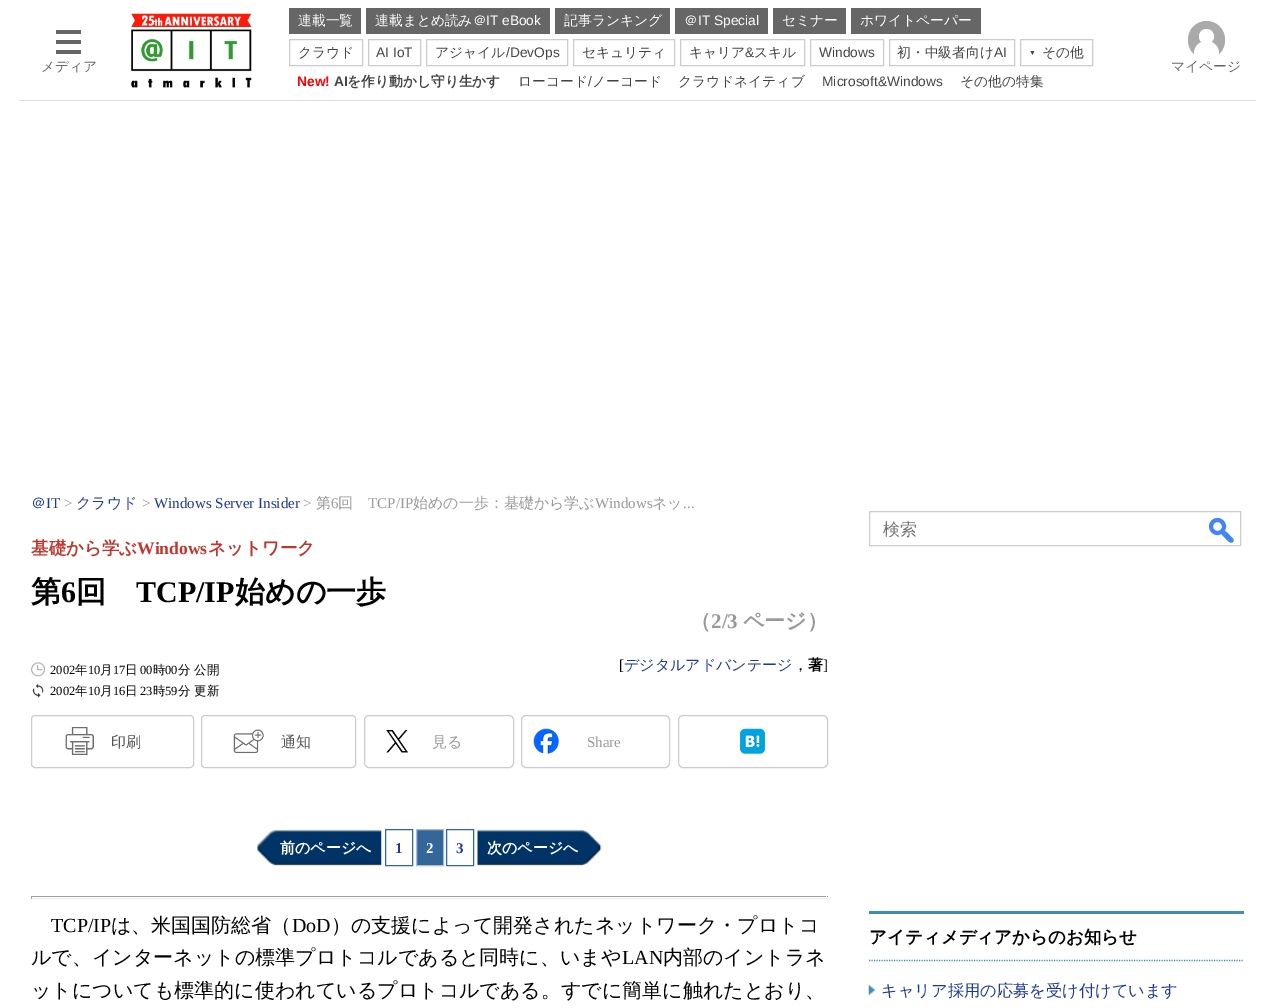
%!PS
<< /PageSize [1275 1008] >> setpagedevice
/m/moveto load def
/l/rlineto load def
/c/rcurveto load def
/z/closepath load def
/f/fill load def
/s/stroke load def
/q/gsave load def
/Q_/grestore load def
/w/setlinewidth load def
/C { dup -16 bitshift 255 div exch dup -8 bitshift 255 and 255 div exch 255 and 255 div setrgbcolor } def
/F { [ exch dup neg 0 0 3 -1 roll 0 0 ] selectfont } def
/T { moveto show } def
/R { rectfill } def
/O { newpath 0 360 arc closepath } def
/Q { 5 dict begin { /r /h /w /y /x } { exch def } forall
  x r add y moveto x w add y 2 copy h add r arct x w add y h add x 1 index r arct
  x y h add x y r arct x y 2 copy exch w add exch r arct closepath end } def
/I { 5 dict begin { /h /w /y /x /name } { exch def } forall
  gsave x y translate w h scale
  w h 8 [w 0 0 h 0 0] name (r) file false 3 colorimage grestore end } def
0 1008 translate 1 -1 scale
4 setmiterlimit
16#FFFFFF C
0 0 1275 1008 R
16#DDDDDD C
19 100 1237 1 R
16#666666 C
56 30 25 4 R
56 40 25 4 R
56 50 25 4 R
/WenQuanYiZenHei-Medium 13.75 F
(メディア) 41 71 T
(1.rgb) 131 13 121 75 I
289 8 72 26 R
16#FFFFFF C
(連載一覧) 298 25 T
16#666666 C
366 8 184 26 R
16#FFFFFF C
(連載まとめ読み＠) 375 25 T
/LiberationSans-Regular 13.75 F
(IT eBook) 486 25 T
16#666666 C
555 8 115 26 R
/WenQuanYiZenHei-Medium 13.75 F
16#FFFFFF C
(記事ランキング) 564 25 T
16#666666 C
675 8 93 26 R
16#FFFFFF C
(＠) 684 25 T
/LiberationSans-Regular 13.75 F
(IT Special) 698 25 T
16#666666 C
773 8 73 26 R
/WenQuanYiZenHei-Medium 13.75 F
16#FFFFFF C
(セミナー) 782 25 T
16#666666 C
851 8 130 26 R
16#FFFFFF C
(ホワイトペーパー) 860 25 T
16#CCCCCC C
289.5 39.5 73 26 rectstroke
16#444444 C
(クラウド) 298 57 T
16#CCCCCC C
368.5 39.5 52 26 rectstroke
/LiberationSans-Regular 13.75 F
16#444444 C
(AI IoT) 376 57 T
16#CCCCCC C
426.5 39.5 141 26 rectstroke
/WenQuanYiZenHei-Medium 13.75 F
16#444444 C
(アジャイル) 435 57 T
/LiberationSans-Regular 13.75 F
(/DevOps) 506 57 T
16#CCCCCC C
573.5 39.5 101 26 rectstroke
/WenQuanYiZenHei-Medium 13.75 F
16#444444 C
(セキュリティ) 582 57 T
16#CCCCCC C
680.5 39.5 124 26 rectstroke
16#444444 C
(キャリア) 689 57 T
/LiberationSans-Regular 13.75 F
(&) 745 57 T
/WenQuanYiZenHei-Medium 13.75 F
(スキル) 754 57 T
16#CCCCCC C
810.5 39.5 73 26 rectstroke
/LiberationSans-Regular 13.75 F
16#444444 C
(Windows) 819 57 T
16#CCCCCC C
889.5 39.5 125 26 rectstroke
/WenQuanYiZenHei-Medium 13.75 F
16#444444 C
(初・中級者向け) 897 57 T
/LiberationSans-Regular 13.75 F
(AI) 994 57 T
16#CCCCCC C
1020.5 39.5 72 26 rectstroke
/LiberationSans-Regular 7 F
16#444444 C
(▼) 1029 55 T
/WenQuanYiZenHei-Medium 13.75 F
(その他) 1042 57 T
/LiberationSans-Bold 13.75 F
16#FF0000 C
(New!) 297 86 T
16#444444 C
(AI) 334 86 T
/WenQuanYiZenHei-Bold 13.75 F
(を作り動かし守り生かす) 347 86 T
/WenQuanYiZenHei-Medium 13.75 F
(ローコード) 518 86 T
/LiberationSans-Regular 13.75 F
(/) 588 86 T
/WenQuanYiZenHei-Medium 13.75 F
(ノーコード) 592 86 T
(クラウドネイティブ) 678 86 T
/LiberationSans-Regular 13.75 F
(Microsoft&Windows) 822 86 T
/WenQuanYiZenHei-Medium 13.75 F
(その他の特集) 960 86 T
16#AAAAAA C
1188 21 37 38 18.5 Q f
16#FFFFFF C
1206.5 41 m 7 0 12.5 5.5 12.5 12.5 c 0 5.5 l -25 0 l 0 -5.5 l 0 -7 5.5 -12.5 12.5 -12.5 c z f
1206.5 36.5 7.5 O f
16#666666 C
(マイページ) 1171 71 T
/WenQuanYiZenHei-Medium 15 F
16#1D3994 C
(＠) 31 508 T
/LiberationSerif-Regular 15 F
(IT) 46 508 T
16#999999 C
(>) 64 508 T
/WenQuanYiZenHei-Medium 15 F
16#1D3994 C
(クラウド) 76 508 T
/LiberationSerif-Regular 15 F
16#999999 C
(>) 142 508 T
16#1D3994 C
(Windows Server Insider) 154 508 T
16#999999 C
(>) 303 508 T
/WenQuanYiZenHei-Medium 15 F
(第) 316 508 T
/LiberationSerif-Regular 15 F
(6) 331 508 T
/WenQuanYiZenHei-Medium 15 F
(回) 338 508 T
/LiberationSerif-Regular 15 F
(TCP/IP) 368 508 T
/WenQuanYiZenHei-Medium 15 F
(始めの一歩：基礎から学ぶ) 413 508 T
/LiberationSerif-Regular 15 F
(Windows) 595 508 T
/WenQuanYiZenHei-Medium 15 F
(ネッ) 652 508 T
/LiberationSerif-Regular 15 F
(...) 683 508 T
/WenQuanYiZenHei-Bold 17.5 F
16#BD372F C
(基礎から学ぶ) 31 554 T
/LiberationSerif-Bold 17.5 F
(Windows) 137 554 T
/WenQuanYiZenHei-Bold 17.5 F
(ネットワーク) 208 554 T
/WenQuanYiZenHei-Bold 30 F
16#000000 C
(第) 31 602 T
/LiberationSerif-Bold 30 F
(6) 61 602 T
/WenQuanYiZenHei-Bold 30 F
(回) 76 602 T
/LiberationSerif-Bold 30 F
(TCP/IP) 136 602 T
/WenQuanYiZenHei-Bold 30 F
(始めの一歩) 235 602 T
/WenQuanYiZenHei-Bold 21 F
16#999999 C
(（) 690 628 T
/LiberationSerif-Bold 21 F
(2/3) 711 628 T
/WenQuanYiZenHei-Bold 21 F
(ページ）) 743 628 T
(2.rgb) 31 662 14 15 I
/LiberationSerif-Regular 12.5 F
16#000000 C
(2002) 50 674 T
/WenQuanYiZenHei-Medium 12.5 F
(年) 75 674 T
/LiberationSerif-Regular 12.5 F
(10) 88 674 T
/WenQuanYiZenHei-Medium 12.5 F
(月) 100 674 T
/LiberationSerif-Regular 12.5 F
(17) 113 674 T
/WenQuanYiZenHei-Medium 12.5 F
(日) 125 674 T
/LiberationSerif-Regular 12.5 F
(00) 140 674 T
/WenQuanYiZenHei-Medium 12.5 F
(時) 153 674 T
/LiberationSerif-Regular 12.5 F
(00) 165 674 T
/WenQuanYiZenHei-Medium 12.5 F
(分 公開) 178 674 T
(3.rgb) 32 683 12 15 I
/LiberationSerif-Regular 12.5 F
(2002) 50 695 T
/WenQuanYiZenHei-Medium 12.5 F
(年) 75 695 T
/LiberationSerif-Regular 12.5 F
(10) 88 695 T
/WenQuanYiZenHei-Medium 12.5 F
(月) 100 695 T
/LiberationSerif-Regular 12.5 F
(16) 113 695 T
/WenQuanYiZenHei-Medium 12.5 F
(日) 125 695 T
/LiberationSerif-Regular 12.5 F
(23) 140 695 T
/WenQuanYiZenHei-Medium 12.5 F
(時) 153 695 T
/LiberationSerif-Regular 12.5 F
(59) 165 695 T
/WenQuanYiZenHei-Medium 12.5 F
(分 更新) 178 695 T
/LiberationSerif-Regular 15 F
([) 619 670 T
/WenQuanYiZenHei-Medium 15 F
16#1D3994 C
(デジタルアドバンテージ) 624 670 T
16#000000 C
(，) 793 670 T
/WenQuanYiZenHei-Bold 15 F
(著) 808 670 T
/LiberationSerif-Regular 15 F
(]) 823 670 T
(4.rgb) 65 727 29 28 I
16#CCCCCC C
31.5 715.5 162 52 3.5 Q s
/WenQuanYiZenHei-Medium 15 F
16#555555 C
(印刷) 111 747 T
(5.rgb) 233 729 31 25 I
16#CCCCCC C
201.5 715.5 154 52 3.5 Q s
16#555555 C
(通知) 281 747 T
(6.rgb) 386 730 22 23 I
16#CCCCCC C
364.5 715.5 149 52 4.5 Q s
16#999999 C
(見る) 432 747 T
(7.rgb) 533 728 26 26 I
16#CCCCCC C
521.5 715.5 148 52 4.5 Q s
/LiberationSerif-Regular 15 F
16#999999 C
(Share) 587 747 T
(8.rgb) 740 728 25 26 I
16#CCCCCC C
678.5 715.5 149 52 4.5 Q s
(9.rgb) 257 829 125 37 I
(10.rgb) 477 829 125 37 I
/WenQuanYiZenHei-Bold 15 F
16#FFFFFF C
(前のページへ) 280 853 T
16#336699 C
385.5 829.5 27 36 rectstroke
/LiberationSerif-Bold 15 F
16#1D3994 C
(1) 395 853 T
16#336699 C
416.5 829.5 m 27 0 l 0 36 l -27 0 l z q f Q_
16#AABBDD C
s
16#FFFFFF C
(2) 426 853 T
16#336699 C
446.5 829.5 27 36 rectstroke
16#1D3994 C
(3) 456 853 T
/WenQuanYiZenHei-Bold 15 F
16#FFFFFF C
(次のページへ) 487 853 T
16#9F9F9F C
31 896 797 1 R
16#EEEEEE C
826 896 1 3 R
31 898 797 1 R
16#9F9F9F C
31 896 1 3 R
/LiberationSerif-Regular 20 F
16#000000 C
(TCP/IP) 51 932 T
/WenQuanYiZenHei-Medium 20 F
(は、米国国防総省（) 111 932 T
/LiberationSerif-Regular 20 F
(DoD) 292 932 T
/WenQuanYiZenHei-Medium 20 F
(）の支援によって開発されたネットワーク・プロトコ) 331 932 T
(ルで、インターネットの標準プロトコルであると同時に、いまや) 31 964 T
/LiberationSerif-Regular 20 F
(LAN) 622 964 T
/WenQuanYiZenHei-Medium 20 F
(内部のイントラネ) 663 964 T
(ットについても標準的に使われているプロトコルである。すでに簡単に触れたとおり、) 31 997 T
16#CCCCCC C
869.5 511.5 371 34 rectstroke
/WenQuanYiZenHei-Medium 17 F
16#757575 C
(検索) 883 535 T
16#4285F4 C
4 w
1217.5 526.5 6.5 O s
1222 531.5 m 2.5 -2.5 6 2 7.5 3.5 c 1 1.5 6 4.5 3.5 7 c -2.5 2.5 -6 -2 -7.5 -3.5 c -1 -1.5 -6 -4.5 -3.5 -7 c z f
16#408CB3 C
869 911 375 3 R
1.2 w
[1.25 1.25] 0 setdash
869 960.5 m 375 0 l s
/WenQuanYiZenHei-Bold 17.5 F
16#000000 C
(アイティメディアからのお知らせ) 869 943 T
(11.rgb) 868 984 8 12 I
/WenQuanYiZenHei-Medium 16.25 F
16#1D3994 C
(キャリア採用の応募を受け付けています) 881 996 T
showpage
